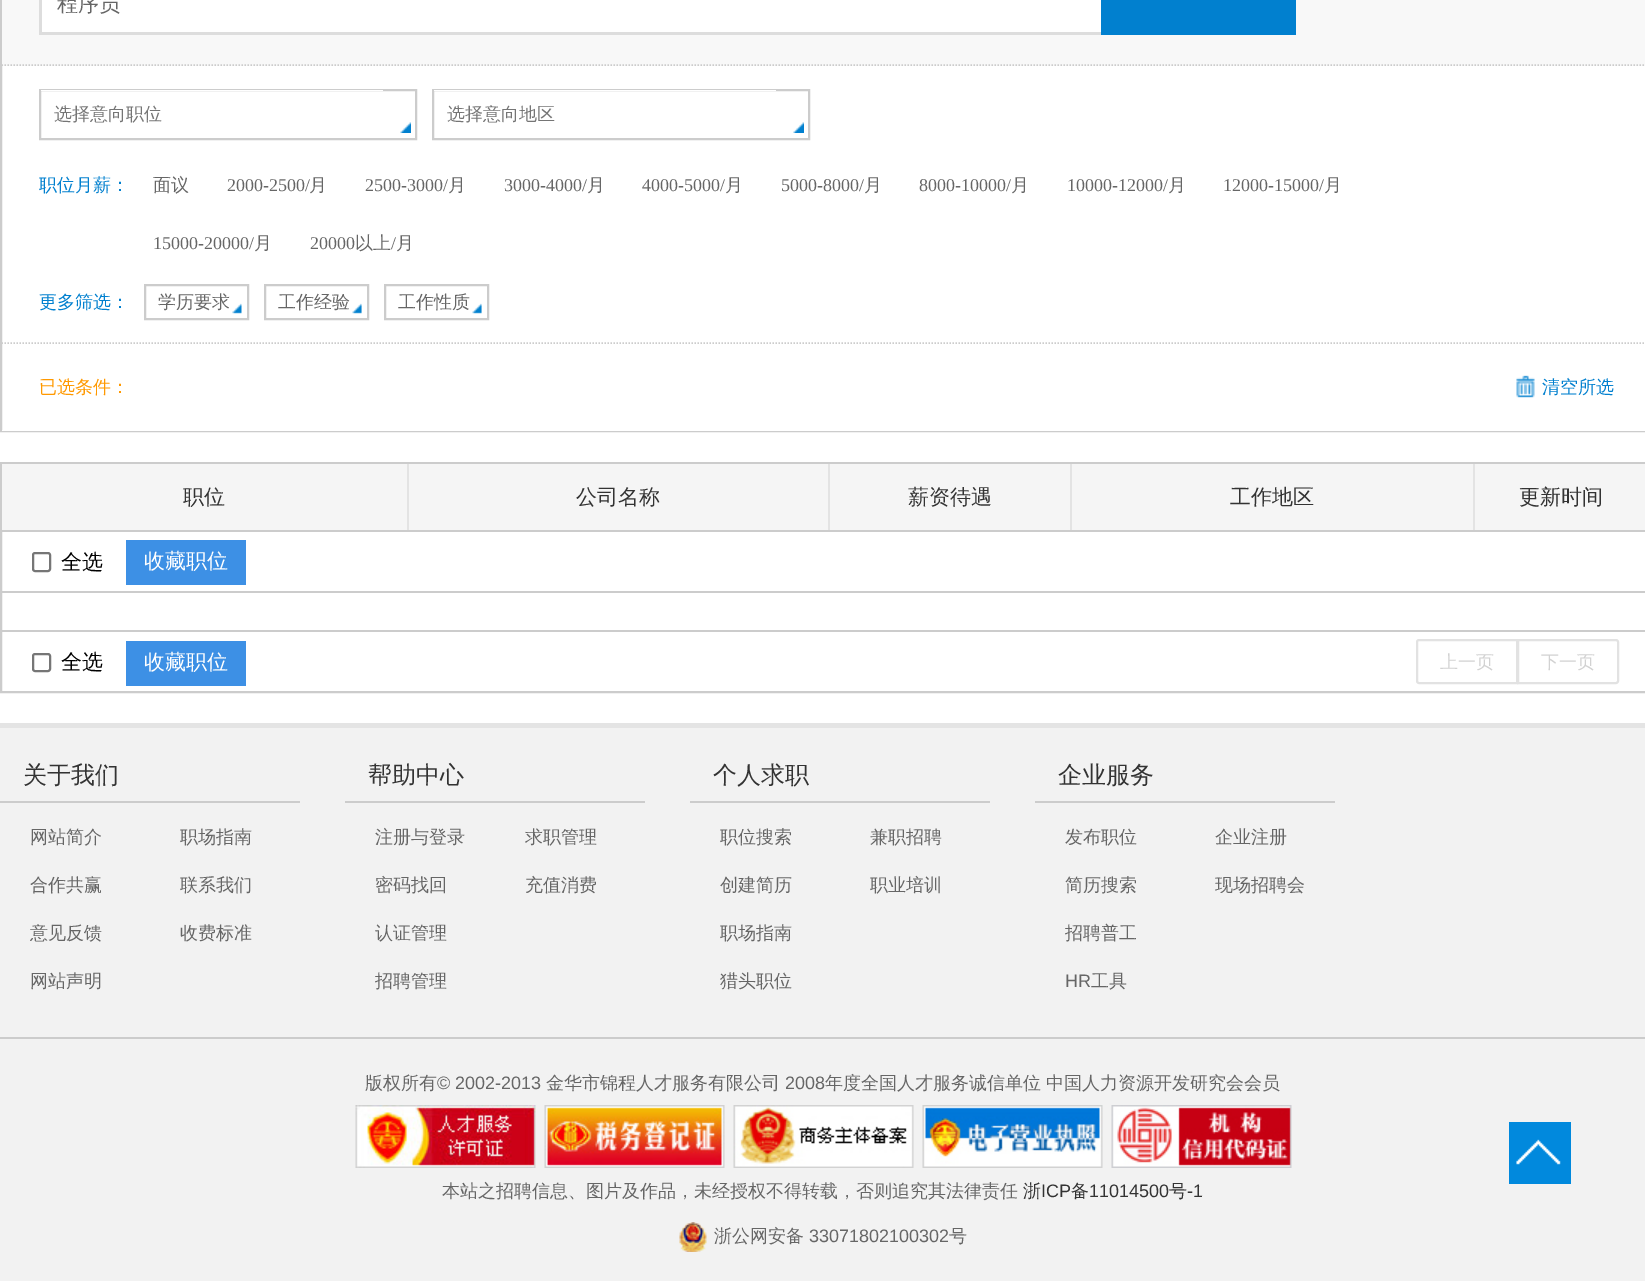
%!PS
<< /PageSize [1645 1281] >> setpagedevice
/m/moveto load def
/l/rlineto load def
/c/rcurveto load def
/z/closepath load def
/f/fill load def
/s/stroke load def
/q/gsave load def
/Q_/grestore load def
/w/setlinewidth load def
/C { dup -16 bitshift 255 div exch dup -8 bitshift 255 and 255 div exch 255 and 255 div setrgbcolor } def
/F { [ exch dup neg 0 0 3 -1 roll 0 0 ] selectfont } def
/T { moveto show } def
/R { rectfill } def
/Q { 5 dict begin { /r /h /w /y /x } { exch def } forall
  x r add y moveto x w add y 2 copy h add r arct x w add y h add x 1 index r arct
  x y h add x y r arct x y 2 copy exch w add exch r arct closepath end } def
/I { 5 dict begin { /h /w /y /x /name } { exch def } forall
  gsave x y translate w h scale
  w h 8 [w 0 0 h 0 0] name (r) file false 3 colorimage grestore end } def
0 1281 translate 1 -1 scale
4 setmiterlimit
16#FFFFFF C
0 0 1645 1281 R
16#CCCCCC C
2 w
1 -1 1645 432 rectstroke
16#F8F8F8 C
2 0 1643 66 R
16#CCCCCC C
1.5 w
[1.5 1.5] 0 setdash
1.5 65 m 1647 0 l s
16#FFFFFF C
42 0 1059 32 R
16#DDDDDD C
39 32 1062 3 R
39 0 3 35 R
/WenQuanYiZenHei-Medium 21 F
16#666666 C
(程序员) 57 11 T
16#0180CF C
1101 0 195 35 R
16#CCCCCC C
2 w
[] 0 setdash
40 90 376 49 rectstroke
16#FFFFFF C
41 90 342 1 R
/WenQuanYiZenHei-Medium 18 F
16#757575 C
(选择意向职位) 54 120 T
(1.rgb) 400 122 11 11 I
16#CCCCCC C
433 90 376 49 rectstroke
16#FFFFFF C
434 90 342 1 R
16#757575 C
(选择意向地区) 447 120 T
(2.rgb) 793 122 11 11 I
16#0180CF C
(职位月薪：) 39 191 T
16#666666 C
(面议) 153 191 T
/LiberationSerif-Regular 18 F
(2000-2500/) 227 191 T
/WenQuanYiZenHei-Medium 18 F
(月) 309 191 T
/LiberationSerif-Regular 18 F
(2500-3000/) 365 191 T
/WenQuanYiZenHei-Medium 18 F
(月) 448 191 T
/LiberationSerif-Regular 18 F
(3000-4000/) 504 191 T
/WenQuanYiZenHei-Medium 18 F
(月) 587 191 T
/LiberationSerif-Regular 18 F
(4000-5000/) 642 191 T
/WenQuanYiZenHei-Medium 18 F
(月) 725 191 T
/LiberationSerif-Regular 18 F
(5000-8000/) 781 191 T
/WenQuanYiZenHei-Medium 18 F
(月) 864 191 T
/LiberationSerif-Regular 18 F
(8000-10000/) 919 191 T
/WenQuanYiZenHei-Medium 18 F
(月) 1011 191 T
/LiberationSerif-Regular 18 F
(10000-12000/) 1067 191 T
/WenQuanYiZenHei-Medium 18 F
(月) 1168 191 T
/LiberationSerif-Regular 18 F
(12000-15000/) 1223 191 T
/WenQuanYiZenHei-Medium 18 F
(月) 1324 191 T
/LiberationSerif-Regular 18 F
(15000-20000/) 153 249 T
/WenQuanYiZenHei-Medium 18 F
(月) 254 249 T
/LiberationSerif-Regular 18 F
(20000) 310 249 T
/WenQuanYiZenHei-Medium 18 F
(以上) 355 249 T
/LiberationSerif-Regular 18 F
(/) 391 249 T
/WenQuanYiZenHei-Medium 18 F
(月) 396 249 T
16#0180CF C
(更多筛选：) 39 308 T
(3.rgb) 232 303 10 11 I
16#CCCCCC C
145 285 103 34 rectstroke
16#666666 C
(学历要求) 158 308 T
(4.rgb) 352 303 10 11 I
16#CCCCCC C
265 285 103 34 rectstroke
16#666666 C
(工作经验) 278 308 T
(4.rgb) 472 303 10 11 I
16#CCCCCC C
385 285 103 34 rectstroke
16#666666 C
(工作性质) 398 308 T
16#FFFFFF C
2 430 1643 1 R
16#CCCCCC C
1.5 w
[1.5 1.5] 0 setdash
1.5 343 m 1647 0 l s
16#FF9900 C
(已选条件：) 39 393 T
(5.rgb) 1516 375 19 23 I
16#0180CF C
(清空所选) 1542 393 T
16#CCCCCC C
2 w
[] 0 setdash
1 463 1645 229 rectstroke
16#F5F5F5 C
2 464 1643 66 R
16#CCCCCC C
2 530 1643 2 R
/WenQuanYiZenHei-Medium 21 F
16#333333 C
(职位) 183 504 T
16#E3E3E3 C
407 464 2 66 R
16#333333 C
(公司名称) 576 504 T
16#E3E3E3 C
828 464 2 66 R
16#333333 C
(薪资待遇) 908 504 T
16#E3E3E3 C
1070 464 2 66 R
16#333333 C
(工作地区) 1230 504 T
16#E3E3E3 C
1473 464 2 66 R
16#333333 C
(更新时间) 1519 504 T
16#CCCCCC C
2 591 1643 2 R
16#767676 C
33 553 17 18 2 Q s
16#000000 C
(全选) 61 569 T
16#3D90E5 C
126 540 120 45 R
16#FFFFFF C
(收藏职位) 144 568 T
16#CCCCCC C
2 630 1643 2 R
16#767676 C
33 654 17 17 2 Q s
16#000000 C
(全选) 61 669 T
16#3D90E5 C
126 641 120 45 R
16#FFFFFF C
(收藏职位) 144 669 T
16#E2E2E2 C
1419 640 m 98 0 l 0 43 l -98 0 l -1 0 -2 -1 -2 -2 c 0 -39 l 0 -1 1 -2 2 -2 c z s
/WenQuanYiZenHei-Medium 18 F
16#D2D2D2 C
(上一页) 1440 668 T
16#FFFFFF C
1518 640 m 98 0 l 1 0 2 1 2 2 c 0 39 l 0 1 -1 2 -2 2 c -98 0 l z q f Q_
16#E2E2E2 C
s
16#D2D2D2 C
(下一页) 1541 668 T
16#F2F2F2 C
0 728 1645 553 R
16#E4E4E4 C
0 723 1645 5 R
16#CCCCCC C
0 801 300 2 R
/WenQuanYiZenHei-Medium 24 F
16#333333 C
(关于我们) 23 783 T
/WenQuanYiZenHei-Medium 18 F
16#666666 C
(网站简介) 30 843 T
(合作共赢) 30 891 T
(意见反馈) 30 939 T
(网站声明) 30 987 T
(职场指南) 180 843 T
(联系我们) 180 891 T
(收费标准) 180 939 T
16#CCCCCC C
345 801 300 2 R
/WenQuanYiZenHei-Medium 24 F
16#333333 C
(帮助中心) 368 783 T
/WenQuanYiZenHei-Medium 18 F
16#666666 C
(注册与登录) 375 843 T
(密码找回) 375 891 T
(认证管理) 375 939 T
(招聘管理) 375 987 T
(求职管理) 525 843 T
(充值消费) 525 891 T
16#CCCCCC C
690 801 300 2 R
/WenQuanYiZenHei-Medium 24 F
16#333333 C
(个人求职) 713 783 T
/WenQuanYiZenHei-Medium 18 F
16#666666 C
(职位搜索) 720 843 T
(创建简历) 720 891 T
(职场指南) 720 939 T
(猎头职位) 720 987 T
(兼职招聘) 870 843 T
(职业培训) 870 891 T
16#CCCCCC C
1035 801 300 2 R
/WenQuanYiZenHei-Medium 24 F
16#333333 C
(企业服务) 1058 783 T
/WenQuanYiZenHei-Medium 18 F
16#666666 C
(发布职位) 1065 843 T
(简历搜索) 1065 891 T
(招聘普工) 1065 939 T
/LiberationSans-Regular 18 F
(HR) 1065 987 T
/WenQuanYiZenHei-Medium 18 F
(工具) 1091 987 T
(企业注册) 1215 843 T
(现场招聘会) 1215 891 T
16#CCCCCC C
0 1037 1645 2 R
16#666666 C
(版权所有) 365 1089 T
/LiberationSans-Regular 18 F
(© 2002-2013) 437 1089 T
/WenQuanYiZenHei-Medium 18 F
(金华市锦程人才服务有限公司) 546 1089 T
/LiberationSans-Regular 18 F
(2008) 785 1089 T
/WenQuanYiZenHei-Medium 18 F
(年度全国人才服务诚信单位) 825 1089 T
(中国人力资源开发研究会会员) 1046 1089 T
(6.rgb) 355 1105 181 63 I
(7.rgb) 544 1105 181 63 I
(8.rgb) 733 1105 181 63 I
(9.rgb) 922 1105 181 63 I
(10.rgb) 1111 1105 181 63 I
(本站之招聘信息、图片及作品，未经授权不得转载，否则追究其法律责任) 442 1197 T
16#333333 C
(浙) 1023 1197 T
/LiberationSans-Regular 18 F
(ICP) 1041 1197 T
/WenQuanYiZenHei-Medium 18 F
(备) 1071 1197 T
/LiberationSans-Regular 18 F
(11014500) 1089 1197 T
/WenQuanYiZenHei-Medium 18 F
(号) 1169 1197 T
/LiberationSans-Regular 18 F
(-1) 1187 1197 T
(11.rgb) 679 1222 28 30 I
/WenQuanYiZenHei-Medium 18 F
16#666666 C
(浙公网安备) 714 1242 T
/LiberationSans-Regular 18 F
(33071802100302) 809 1242 T
/WenQuanYiZenHei-Medium 18 F
(号) 949 1242 T
16#0189DD C
1509 1122 62 62 R
(12.rgb) 1516 1139 45 26 I
showpage
